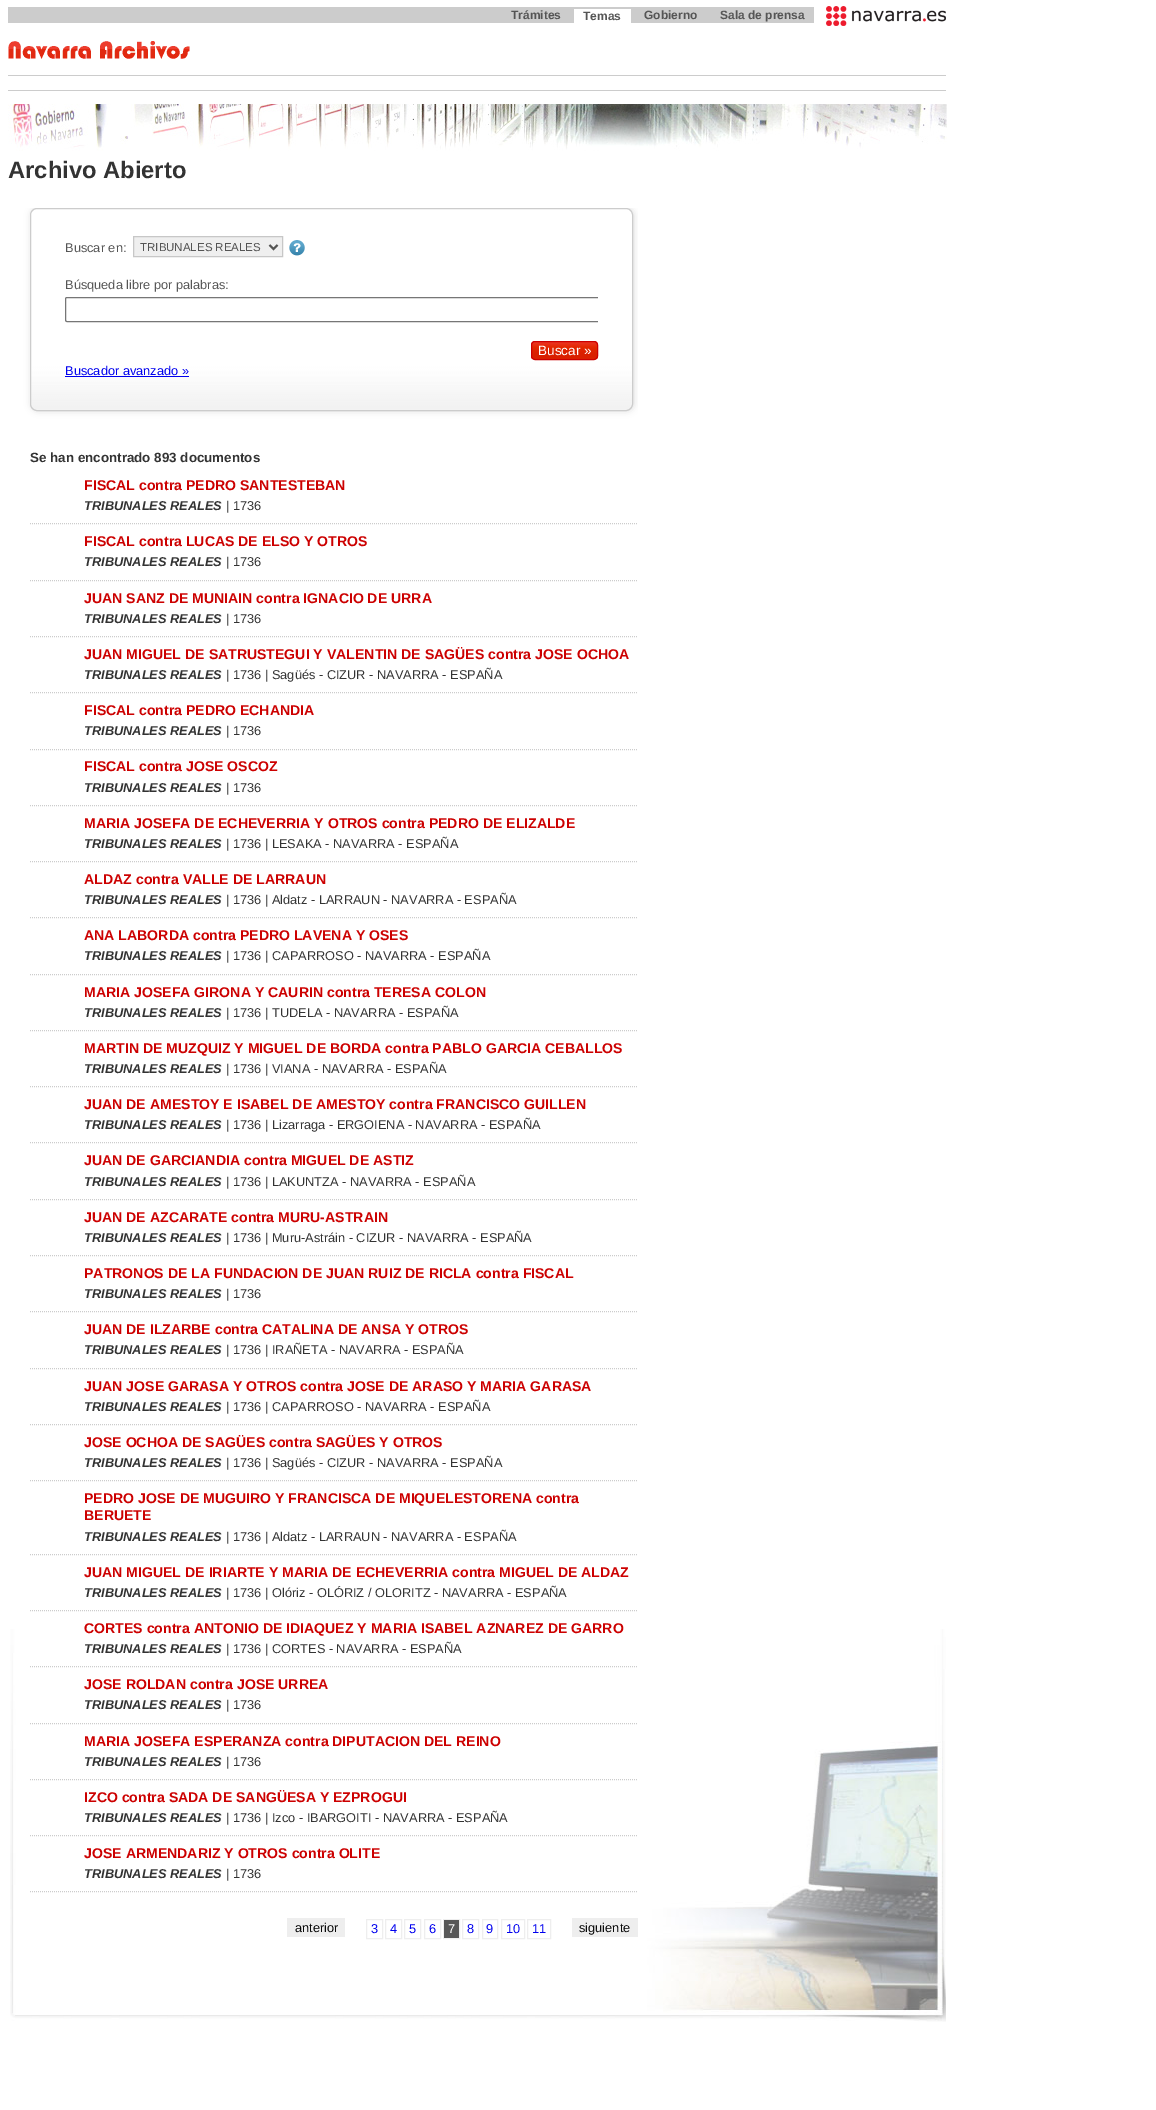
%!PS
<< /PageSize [1156 2110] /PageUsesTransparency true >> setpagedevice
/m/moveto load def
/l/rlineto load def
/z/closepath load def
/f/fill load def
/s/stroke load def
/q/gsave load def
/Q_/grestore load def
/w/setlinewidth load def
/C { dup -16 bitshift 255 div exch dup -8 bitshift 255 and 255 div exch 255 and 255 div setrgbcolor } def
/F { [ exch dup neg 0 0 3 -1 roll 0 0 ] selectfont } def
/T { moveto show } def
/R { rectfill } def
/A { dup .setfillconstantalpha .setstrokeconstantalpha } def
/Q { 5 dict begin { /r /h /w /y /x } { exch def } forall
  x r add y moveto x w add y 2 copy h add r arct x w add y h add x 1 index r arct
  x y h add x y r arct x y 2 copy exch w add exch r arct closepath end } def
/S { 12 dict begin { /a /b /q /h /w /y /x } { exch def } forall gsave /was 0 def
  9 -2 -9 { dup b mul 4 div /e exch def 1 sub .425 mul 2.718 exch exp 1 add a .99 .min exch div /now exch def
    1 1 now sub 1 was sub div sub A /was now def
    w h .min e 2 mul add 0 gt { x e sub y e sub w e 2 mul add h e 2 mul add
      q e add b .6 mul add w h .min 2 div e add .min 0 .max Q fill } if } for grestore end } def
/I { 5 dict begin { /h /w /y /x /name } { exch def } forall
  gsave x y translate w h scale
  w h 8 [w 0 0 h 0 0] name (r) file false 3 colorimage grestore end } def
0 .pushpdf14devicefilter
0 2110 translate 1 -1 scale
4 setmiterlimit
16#FFFFFF C
0 0 1156 2110 R
16#CCCCCC C
8 7 806 16 R
/LiberationSans-Bold 12 F
16#555555 C
(Trámites) 511 19 T
16#FFFFFF C
574 9 57 14 R
16#555555 C
(Temas) 583 20 T
(Gobierno) 644 19 T
(Sala de prensa) 720 19 T
(1.rgb) 826 6 120 20 I
(2.rgb) 8 41 182 18 I
16#CCCCCC C
8 75 938 1 R
8 90 938 1 R
(3.rgb) 8 104 939 47 I
/LiberationSans-Bold 23.75 F
16#333333 C
(Archivo Abierto) 8 178 T
(4.rgb) 10 1629 936 393 I
q
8 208 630 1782 rectclip
16#DBDBDB C
31 208 603 203 7 3.5 1 S
Q_
(5.rgb) 30 208 603 202 I
16#CCCCCC C
30.5 208.5 602 202 6.5 Q s
/LiberationSans-Regular 12.8 F
16#555555 C
(Buscar en:) 65 252 T
16#EFEFEF C
133.5 236.5 m 149 0 l 0 20 l -149 0 l z q f Q_
16#C7C7C7 C
s
16#545453 C
2 w
269.5 245 m 4 4 l 4 -4 l s
/LiberationSans-Regular 11.5 F
16#555555 C
(TRIBUNALES REALES) 140 251 T
(6.rgb) 289 240 16 16 I
/LiberationSans-Regular 12.8 F
(Búsqueda libre por palabras:) 65 289 T
q
65 270 533 58 rectclip
16#767676 C
1 w
65.5 297.5 534 24 1.5 Q s
Q_
(7.rgb) 531 341 67 18 I
16#CC0000 C
1 w
531.5 341.5 66 18 3.5 Q s
/LiberationSans-Regular 13.5 F
16#FFFFFF C
(Buscar ») 538 355 T
/LiberationSans-Regular 12.8 F
16#0000EE C
(Buscador avanzado ») 65 375 T
65 376 124 1 R
/LiberationSans-Bold 13.4 F
16#333333 C
(Se han encontrado 893 documentos) 30 462 T
16#CCCCCC C
[1 1] 0 setdash
30 523.5 m 608 0 l s
/LiberationSans-Bold 14.1 F
16#CC0000 C
(FISCAL contra PEDRO SANTESTEBAN) 84 490 T
/LiberationSans-BoldItalic 12.8 F
16#333333 C
(TRIBUNALES REALES) 84 510 T
/LiberationSans-Regular 12.8 F
(| 1736) 226 510 T
16#CCCCCC C
30 580.5 m 608 0 l s
/LiberationSans-Bold 14.1 F
16#CC0000 C
(FISCAL contra LUCAS DE ELSO Y OTROS) 84 546 T
/LiberationSans-BoldItalic 12.8 F
16#333333 C
(TRIBUNALES REALES) 84 566 T
/LiberationSans-Regular 12.8 F
(| 1736) 226 566 T
16#CCCCCC C
30 636.5 m 608 0 l s
/LiberationSans-Bold 14.1 F
16#CC0000 C
(JUAN SANZ DE MUNIAIN contra IGNACIO DE URRA) 84 603 T
/LiberationSans-BoldItalic 12.8 F
16#333333 C
(TRIBUNALES REALES) 84 623 T
/LiberationSans-Regular 12.8 F
(| 1736) 226 623 T
16#CCCCCC C
30 692.5 m 608 0 l s
/LiberationSans-Bold 14.1 F
16#CC0000 C
(JUAN MIGUEL DE SATRUSTEGUI Y VALENTIN DE SAGÜES contra JOSE OCHOA) 84 659 T
/LiberationSans-BoldItalic 12.8 F
16#333333 C
(TRIBUNALES REALES) 84 679 T
/LiberationSans-Regular 12.8 F
(| 1736 | Sagüés - CIZUR - NAVARRA - ESPAÑA) 226 679 T
16#CCCCCC C
30 749.5 m 608 0 l s
/LiberationSans-Bold 14.1 F
16#CC0000 C
(FISCAL contra PEDRO ECHANDIA) 84 715 T
/LiberationSans-BoldItalic 12.8 F
16#333333 C
(TRIBUNALES REALES) 84 735 T
/LiberationSans-Regular 12.8 F
(| 1736) 226 735 T
16#CCCCCC C
30 805.5 m 608 0 l s
/LiberationSans-Bold 14.1 F
16#CC0000 C
(FISCAL contra JOSE OSCOZ) 84 771 T
/LiberationSans-BoldItalic 12.8 F
16#333333 C
(TRIBUNALES REALES) 84 792 T
/LiberationSans-Regular 12.8 F
(| 1736) 226 792 T
16#CCCCCC C
30 861.5 m 608 0 l s
/LiberationSans-Bold 14.1 F
16#CC0000 C
(MARIA JOSEFA DE ECHEVERRIA Y OTROS contra PEDRO DE ELIZALDE) 84 828 T
/LiberationSans-BoldItalic 12.8 F
16#333333 C
(TRIBUNALES REALES) 84 848 T
/LiberationSans-Regular 12.8 F
(| 1736 | LESAKA - NAVARRA - ESPAÑA) 226 848 T
16#CCCCCC C
30 917.5 m 608 0 l s
/LiberationSans-Bold 14.1 F
16#CC0000 C
(ALDAZ contra VALLE DE LARRAUN) 84 884 T
/LiberationSans-BoldItalic 12.8 F
16#333333 C
(TRIBUNALES REALES) 84 904 T
/LiberationSans-Regular 12.8 F
(| 1736 | Aldatz - LARRAUN - NAVARRA - ESPAÑA) 226 904 T
16#CCCCCC C
30 974.5 m 608 0 l s
/LiberationSans-Bold 14.1 F
16#CC0000 C
(ANA LABORDA contra PEDRO LAVENA Y OSES) 84 940 T
/LiberationSans-BoldItalic 12.8 F
16#333333 C
(TRIBUNALES REALES) 84 960 T
/LiberationSans-Regular 12.8 F
(| 1736 | CAPARROSO - NAVARRA - ESPAÑA) 226 960 T
16#CCCCCC C
30 1030.5 m 608 0 l s
/LiberationSans-Bold 14.1 F
16#CC0000 C
(MARIA JOSEFA GIRONA Y CAURIN contra TERESA COLON) 84 997 T
/LiberationSans-BoldItalic 12.8 F
16#333333 C
(TRIBUNALES REALES) 84 1017 T
/LiberationSans-Regular 12.8 F
(| 1736 | TUDELA - NAVARRA - ESPAÑA) 226 1017 T
16#CCCCCC C
30 1086.5 m 608 0 l s
/LiberationSans-Bold 14.1 F
16#CC0000 C
(MARTIN DE MUZQUIZ Y MIGUEL DE BORDA contra PABLO GARCIA CEBALLOS) 84 1053 T
/LiberationSans-BoldItalic 12.8 F
16#333333 C
(TRIBUNALES REALES) 84 1073 T
/LiberationSans-Regular 12.8 F
(| 1736 | VIANA - NAVARRA - ESPAÑA) 226 1073 T
16#CCCCCC C
30 1142.5 m 608 0 l s
/LiberationSans-Bold 14.1 F
16#CC0000 C
(JUAN DE AMESTOY E ISABEL DE AMESTOY contra FRANCISCO GUILLEN) 84 1109 T
/LiberationSans-BoldItalic 12.8 F
16#333333 C
(TRIBUNALES REALES) 84 1129 T
/LiberationSans-Regular 12.8 F
(| 1736 | Lizarraga - ERGOIENA - NAVARRA - ESPAÑA) 226 1129 T
16#CCCCCC C
30 1199.5 m 608 0 l s
/LiberationSans-Bold 14.1 F
16#CC0000 C
(JUAN DE GARCIANDIA contra MIGUEL DE ASTIZ) 84 1165 T
/LiberationSans-BoldItalic 12.8 F
16#333333 C
(TRIBUNALES REALES) 84 1186 T
/LiberationSans-Regular 12.8 F
(| 1736 | LAKUNTZA - NAVARRA - ESPAÑA) 226 1186 T
16#CCCCCC C
30 1255.5 m 608 0 l s
/LiberationSans-Bold 14.1 F
16#CC0000 C
(JUAN DE AZCARATE contra MURU-ASTRAIN) 84 1222 T
/LiberationSans-BoldItalic 12.8 F
16#333333 C
(TRIBUNALES REALES) 84 1242 T
/LiberationSans-Regular 12.8 F
(| 1736 | Muru-Astráin - CIZUR - NAVARRA - ESPAÑA) 226 1242 T
16#CCCCCC C
30 1311.5 m 608 0 l s
/LiberationSans-Bold 14.1 F
16#CC0000 C
(PATRONOS DE LA FUNDACION DE JUAN RUIZ DE RICLA contra FISCAL) 84 1278 T
/LiberationSans-BoldItalic 12.8 F
16#333333 C
(TRIBUNALES REALES) 84 1298 T
/LiberationSans-Regular 12.8 F
(| 1736) 226 1298 T
16#CCCCCC C
30 1368.5 m 608 0 l s
/LiberationSans-Bold 14.1 F
16#CC0000 C
(JUAN DE ILZARBE contra CATALINA DE ANSA Y OTROS) 84 1334 T
/LiberationSans-BoldItalic 12.8 F
16#333333 C
(TRIBUNALES REALES) 84 1354 T
/LiberationSans-Regular 12.8 F
(| 1736 | IRAÑETA - NAVARRA - ESPAÑA) 226 1354 T
16#CCCCCC C
30 1424.5 m 608 0 l s
/LiberationSans-Bold 14.1 F
16#CC0000 C
(JUAN JOSE GARASA Y OTROS contra JOSE DE ARASO Y MARIA GARASA) 84 1391 T
/LiberationSans-BoldItalic 12.8 F
16#333333 C
(TRIBUNALES REALES) 84 1411 T
/LiberationSans-Regular 12.8 F
(| 1736 | CAPARROSO - NAVARRA - ESPAÑA) 226 1411 T
16#CCCCCC C
30 1480.5 m 608 0 l s
/LiberationSans-Bold 14.1 F
16#CC0000 C
(JOSE OCHOA DE SAGÜES contra SAGÜES Y OTROS) 84 1447 T
/LiberationSans-BoldItalic 12.8 F
16#333333 C
(TRIBUNALES REALES) 84 1467 T
/LiberationSans-Regular 12.8 F
(| 1736 | Sagüés - CIZUR - NAVARRA - ESPAÑA) 226 1467 T
16#CCCCCC C
30 1554.5 m 608 0 l s
/LiberationSans-Bold 14.1 F
16#CC0000 C
(PEDRO JOSE DE MUGUIRO Y FRANCISCA DE MIQUELESTORENA contra) 84 1503 T
(BERUETE) 84 1520 T
/LiberationSans-BoldItalic 12.8 F
16#333333 C
(TRIBUNALES REALES) 84 1541 T
/LiberationSans-Regular 12.8 F
(| 1736 | Aldatz - LARRAUN - NAVARRA - ESPAÑA) 226 1541 T
16#CCCCCC C
30 1610.5 m 608 0 l s
/LiberationSans-Bold 14.1 F
16#CC0000 C
(JUAN MIGUEL DE IRIARTE Y MARIA DE ECHEVERRIA contra MIGUEL DE ALDAZ) 84 1577 T
/LiberationSans-BoldItalic 12.8 F
16#333333 C
(TRIBUNALES REALES) 84 1597 T
/LiberationSans-Regular 12.8 F
(| 1736 | Olóriz - OLÓRIZ / OLORITZ - NAVARRA - ESPAÑA) 226 1597 T
16#CCCCCC C
30 1666.5 m 608 0 l s
/LiberationSans-Bold 14.1 F
16#CC0000 C
(CORTES contra ANTONIO DE IDIAQUEZ Y MARIA ISABEL AZNAREZ DE GARRO) 84 1633 T
/LiberationSans-BoldItalic 12.8 F
16#333333 C
(TRIBUNALES REALES) 84 1653 T
/LiberationSans-Regular 12.8 F
(| 1736 | CORTES - NAVARRA - ESPAÑA) 226 1653 T
16#CCCCCC C
30 1723.5 m 608 0 l s
/LiberationSans-Bold 14.1 F
16#CC0000 C
(JOSE ROLDAN contra JOSE URREA) 84 1689 T
/LiberationSans-BoldItalic 12.8 F
16#333333 C
(TRIBUNALES REALES) 84 1709 T
/LiberationSans-Regular 12.8 F
(| 1736) 226 1709 T
16#CCCCCC C
30 1779.5 m 608 0 l s
/LiberationSans-Bold 14.1 F
16#CC0000 C
(MARIA JOSEFA ESPERANZA contra DIPUTACION DEL REINO) 84 1746 T
/LiberationSans-BoldItalic 12.8 F
16#333333 C
(TRIBUNALES REALES) 84 1766 T
/LiberationSans-Regular 12.8 F
(| 1736) 226 1766 T
16#CCCCCC C
30 1835.5 m 608 0 l s
/LiberationSans-Bold 14.1 F
16#CC0000 C
(IZCO contra SADA DE SANGÜESA Y EZPROGUI) 84 1802 T
/LiberationSans-BoldItalic 12.8 F
16#333333 C
(TRIBUNALES REALES) 84 1822 T
/LiberationSans-Regular 12.8 F
(| 1736 | Izco - IBARGOITI - NAVARRA - ESPAÑA) 226 1822 T
16#CCCCCC C
30 1891.5 m 608 0 l s
/LiberationSans-Bold 14.1 F
16#CC0000 C
(JOSE ARMENDARIZ Y OTROS contra OLITE) 84 1858 T
/LiberationSans-BoldItalic 12.8 F
16#333333 C
(TRIBUNALES REALES) 84 1878 T
/LiberationSans-Regular 12.8 F
(| 1736) 226 1878 T
16#EEEEEE C
287 1918 58 19 R
16#090909 C
(anterior) 295 1932 T
16#EEEEEE C
[] 0 setdash
366.5 1919.5 16 19 rectstroke
16#0000EE C
(3) 371 1933 T
16#EEEEEE C
385.5 1919.5 16 19 rectstroke
16#0000EE C
(4) 390 1933 T
16#EEEEEE C
404.5 1919.5 16 19 rectstroke
16#0000EE C
(5) 409 1933 T
16#EEEEEE C
424.5 1919.5 16 19 rectstroke
16#0000EE C
(6) 429 1933 T
16#EEEEEE C
443.5 1919.5 16 19 rectstroke
16#575757 C
444 1920 15 18 R
16#FFFFFF C
(7) 448 1933 T
16#EEEEEE C
462.5 1919.5 16 19 rectstroke
16#0000EE C
(8) 467 1933 T
16#EEEEEE C
482.5 1919.5 15 19 rectstroke
16#0000EE C
(9) 486 1933 T
16#EEEEEE C
501.5 1919.5 23 19 rectstroke
16#0000EE C
(10) 506 1933 T
16#EEEEEE C
527.5 1919.5 23 19 rectstroke
16#0000EE C
(11) 532 1933 T
16#EEEEEE C
572 1918 66 19 R
16#090909 C
(siguiente) 579 1932 T
.poppdf14devicefilter showpage
